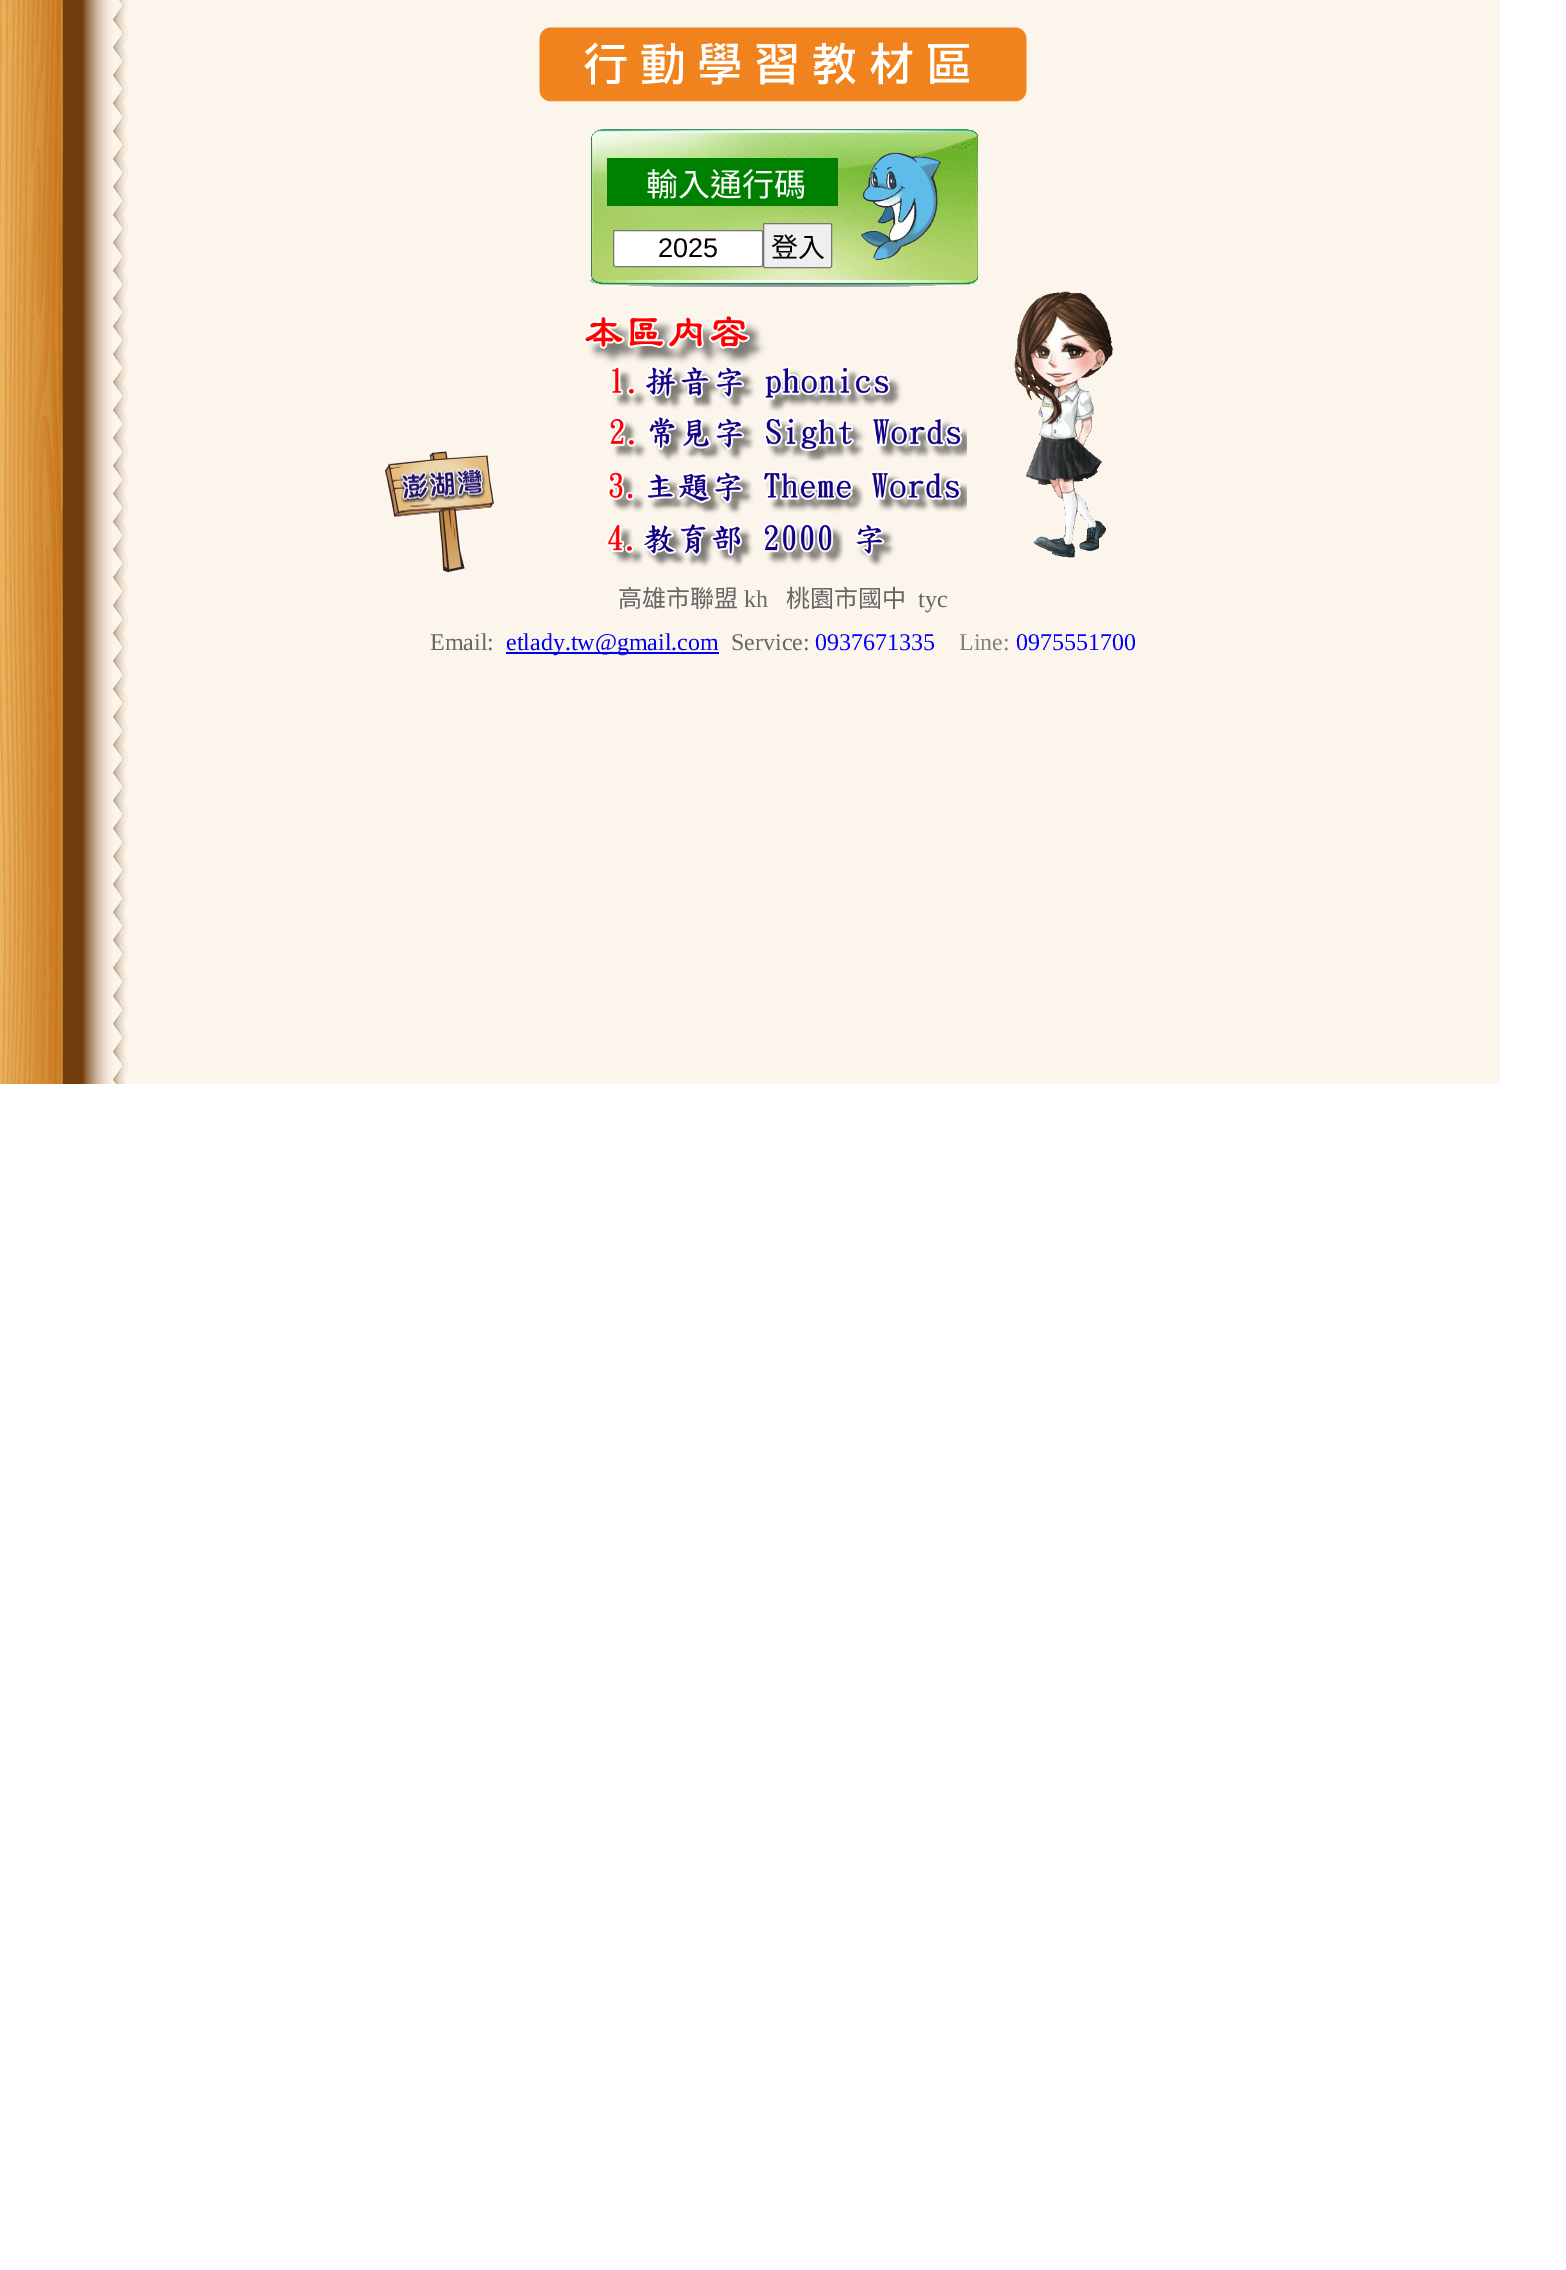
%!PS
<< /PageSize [1566 2270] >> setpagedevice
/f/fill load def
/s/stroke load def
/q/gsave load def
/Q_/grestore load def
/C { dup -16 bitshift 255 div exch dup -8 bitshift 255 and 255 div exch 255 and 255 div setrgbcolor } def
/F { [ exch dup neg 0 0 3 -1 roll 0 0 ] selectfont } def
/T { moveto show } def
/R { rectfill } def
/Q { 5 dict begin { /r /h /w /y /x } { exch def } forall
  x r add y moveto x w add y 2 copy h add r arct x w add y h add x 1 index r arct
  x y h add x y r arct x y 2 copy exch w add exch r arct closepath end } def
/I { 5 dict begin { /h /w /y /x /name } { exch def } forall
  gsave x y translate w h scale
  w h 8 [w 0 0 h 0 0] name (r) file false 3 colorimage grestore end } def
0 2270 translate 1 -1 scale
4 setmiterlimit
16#FFFFFF C
0 0 1566 2270 R
(1.rgb) 0 0 1500 1084 I
(2.rgb) 539 27 488 75 I
(3.rgb) 590 129 388 158 I
16#008000 C
607 158 231 48 R
/NotoSansCJKTC-Regular 32 F
16#FFFFFF C
(輸入通行碼) 646 196 T
(4.rgb) 861 152 80 109 I
613.5 230.5 149 36 1.5 Q q f Q_
16#767676 C
s
/LiberationSans-Regular 27 F
16#000000 C
(2025) 658 257 T
16#EFEFEF C
763.5 223.5 68 44 1.5 Q q f Q_
16#767676 C
s
/NotoSansCJKTC-Regular 27 F
16#000000 C
(登入) 771 257 T
(5.rgb) 384 451 111 122 I
(6.rgb) 583 314 384 253 I
(7.rgb) 1014 291 99 267 I
/NotoSansCJKTC-Regular 24 F
16#666666 C
(高雄市聯盟) 618 607 T
/LiberationSerif-Regular 24 F
(kh) 744 607 T
/NotoSansCJKTC-Regular 24 F
(桃園市國中) 786 607 T
/LiberationSerif-Regular 24 F
(tyc) 918 607 T
(Email:) 430 650 T
16#0000EE C
506 652 213 2 R
(etlady.tw@gmail.com) 506 650 T
16#666666 C
(Service:) 731 650 T
16#0000FF C
(0937671335) 815 650 T
16#808080 C
(Line:) 959 650 T
16#0000FF C
(0975551700) 1016 650 T
showpage
